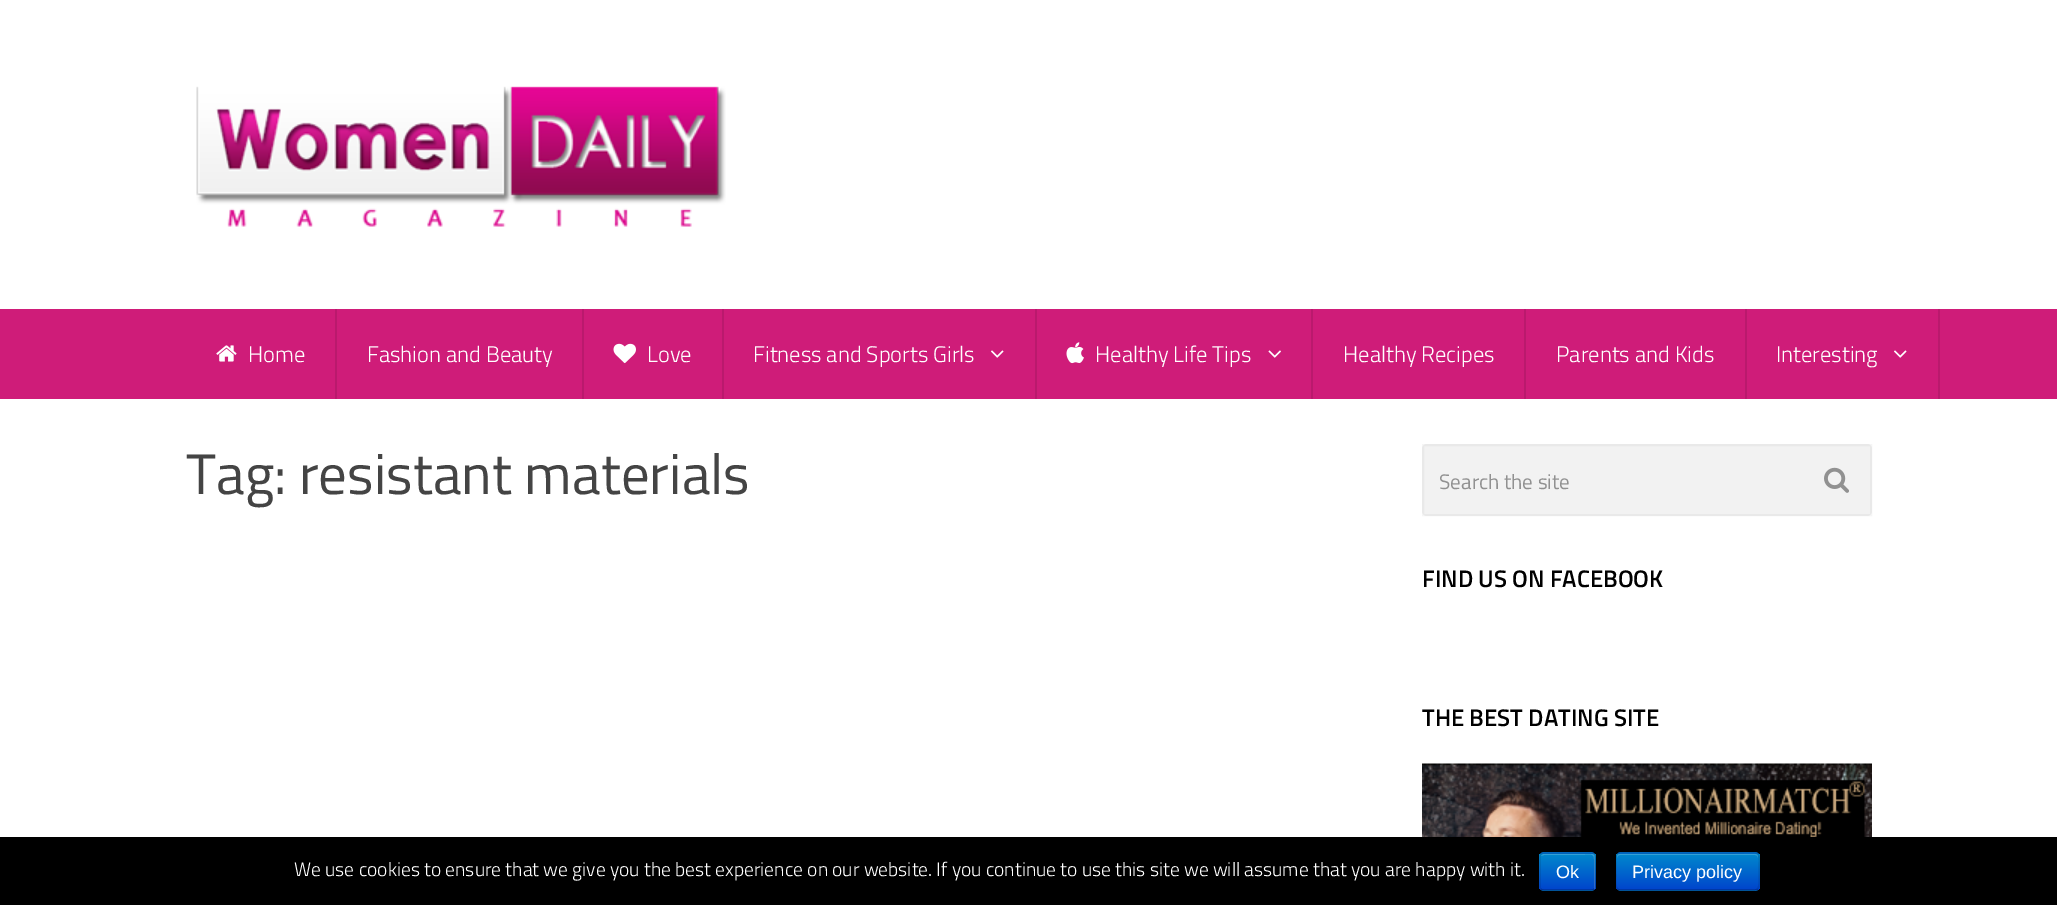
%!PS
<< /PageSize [2057 905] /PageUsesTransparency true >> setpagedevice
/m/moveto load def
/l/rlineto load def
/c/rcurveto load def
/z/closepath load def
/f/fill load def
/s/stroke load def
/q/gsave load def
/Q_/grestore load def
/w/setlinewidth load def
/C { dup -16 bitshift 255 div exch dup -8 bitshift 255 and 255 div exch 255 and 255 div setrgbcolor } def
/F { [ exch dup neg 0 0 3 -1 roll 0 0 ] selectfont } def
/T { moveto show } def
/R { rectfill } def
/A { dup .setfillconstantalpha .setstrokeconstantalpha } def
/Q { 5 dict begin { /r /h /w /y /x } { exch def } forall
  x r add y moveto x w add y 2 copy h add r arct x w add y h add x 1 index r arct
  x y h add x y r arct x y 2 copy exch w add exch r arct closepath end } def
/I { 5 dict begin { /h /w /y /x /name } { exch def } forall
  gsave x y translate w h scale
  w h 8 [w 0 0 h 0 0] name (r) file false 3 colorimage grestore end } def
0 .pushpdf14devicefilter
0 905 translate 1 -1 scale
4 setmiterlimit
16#FFFFFF C
0 0 2057 905 R
(1.rgb) 196 86 530 141 I
16#CF1C79 C
0 309 2057 90 R
16#BA196D C
335 309 2 90 R
(2.rgb) 216 345 21 17 I
/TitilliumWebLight-Light 22.5 F
16#FFFFFF C
(Home) 248 362 T
16#BA196D C
582 309 2 90 R
16#FFFFFF C
(Fashion and Beauty) 367 362 T
16#BA196D C
722 309 2 90 R
(3.rgb) 613 343 23 21 I
16#FFFFFF C
(Love) 647 362 T
16#BA196D C
1035 309 2 90 R
16#FFFFFF C
(Fitness and Sports Girls) 753 362 T
(4.rgb) 991 350 13 8 I
16#BA196D C
1311 309 2 90 R
(5.rgb) 1066 342 18 22 I
16#FFFFFF C
(Healthy Life Tips) 1095 362 T
(6.rgb) 1268 350 13 8 I
16#BA196D C
1524 309 2 90 R
16#FFFFFF C
(Healthy Recipes) 1343 362 T
16#BA196D C
1745 309 2 90 R
16#FFFFFF C
(Parents and Kids) 1556 362 T
16#BA196D C
1938 309 2 90 R
16#FFFFFF C
(Interesting) 1776 362 T
(4.rgb) 1894 350 13 8 I
/TitilliumWeb-Regular 57 F
16#444444 C
(Tag: resistant materials) 186 494 T
16#F2F2F2 C
1422 444 450 72 5 Q f
0.04 A
16#000000 C
2 w
1423 445 448 70 rectstroke
/TitilliumWeb-Regular 21 F
1 A
16#919191 C
(Search the site) 1439 489 T
(7.rgb) 1824 467 25 26 I
/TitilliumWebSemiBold-SemiBold 24 F
16#000000 C
(FIND US ON FACEBOOK) 1422 587 T
(THE BEST DATING SITE) 1422 726 T
(8.rgb) 1422 763 450 74 I
0 837 2057 68 R
/TitilliumWebLight-Light 19.5 F
16#FFFFFF C
(We use cookies to ensure that we give you the best experience on our website. If you continue to use this site we will assume that you are happy with it.) 294 876 T
16#006DCC C
1539 852 57 39 5 Q f
q
1539 852 57 39 5 Q clip newpath
q 1539 854 m 57 0 l 0 36 l -57 0 l z clip newpath
<< /ShadingType 2 /ColorSpace /DeviceRGB /Coords [1568 854 1568 890] /Extend [true true] /Function << /FunctionType 2 /Domain [0 1] /C0 [0 .533 .8] /C1 [0 .267 .8] /N 1 >> >> shfill Q_
Q_
0.2 A
16#FFFFFF C
1544 855 m 32 0 l 20 0 18 -4 18 13 c 0 21 l 1 0 1 -1 1 -2 c 0 -30 l 0 -2 -1 -3 -3 -3 c -48 0 l -1 0 -2 1 -3 2 c z f
0.25 A
16#000000 C
1.5 w
1594 889 m -.5 1 -1.5 1 -2.5 1 c -48 0 l -1 0 -2 0 -2.5 -1 c s
0.1 A
1541 889 m -1 -.5 -1 -1.5 -1 -2.5 c 0 -30 l 0 -1 0 -2 1 -2.5 c .5 -1 1.5 -1 2.5 -1 c 48 0 l 1 0 2 0 2.5 1 c 1 .5 1 1.5 1 2.5 c 0 30 l 0 1 0 2 -1 2.5 c s
/LiberationSans-Regular 18 F
1 A
16#FFFFFF C
(Ok) 1556 878 T
16#006DCC C
1616 852 144 39 5 Q f
q
1616 852 144 39 5 Q clip newpath
q 1616 854 m 144 0 l 0 36 l -144 0 l z clip newpath
<< /ShadingType 2 /ColorSpace /DeviceRGB /Coords [1688 854 1688 890] /Extend [true true] /Function << /FunctionType 2 /Domain [0 1] /C0 [0 .533 .8] /C1 [0 .267 .8] /N 1 >> >> shfill Q_
Q_
16#339FD6 C
1620 855 m 135 0 l 2 0 3 1 3 3 c 0 -1 l 0 -2 -1 -3 -3 -3 c -135 0 l -2 0 -3 1 -3 3 c 0 1 l 0 -2 1 -3 3 -3 c z f
0.25 A
16#000000 C
1757.5 889 m -.5 1 -1.5 1 -2.5 1 c -135 0 l -1 0 -2 0 -2.5 -1 c s
0.1 A
1617.5 889 m -2.5 -2.5 -1.5 -10 -1.5 -12.5 c 0 -29.5 -5 -23.5 26.5 -23.5 c 90 0 l 31.5 0 26.5 -6 26.5 23.5 c 0 2.5 1 10 -1.5 12.5 c s
1 A
16#FFFFFF C
(Privacy policy) 1632 878 T
.poppdf14devicefilter showpage
